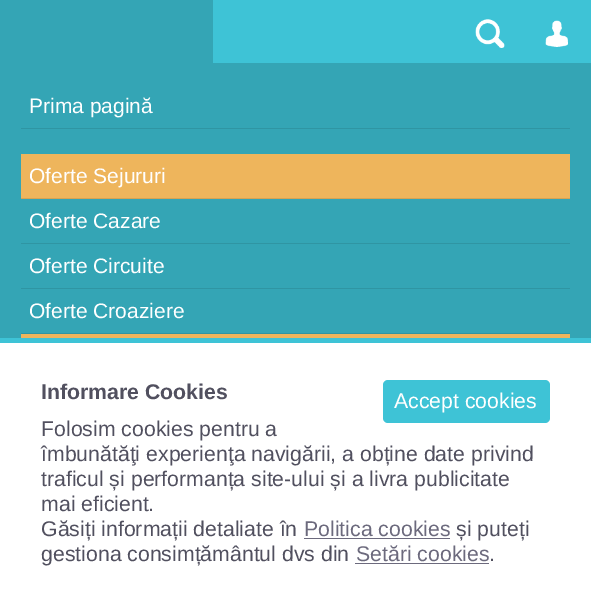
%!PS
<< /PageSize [591 605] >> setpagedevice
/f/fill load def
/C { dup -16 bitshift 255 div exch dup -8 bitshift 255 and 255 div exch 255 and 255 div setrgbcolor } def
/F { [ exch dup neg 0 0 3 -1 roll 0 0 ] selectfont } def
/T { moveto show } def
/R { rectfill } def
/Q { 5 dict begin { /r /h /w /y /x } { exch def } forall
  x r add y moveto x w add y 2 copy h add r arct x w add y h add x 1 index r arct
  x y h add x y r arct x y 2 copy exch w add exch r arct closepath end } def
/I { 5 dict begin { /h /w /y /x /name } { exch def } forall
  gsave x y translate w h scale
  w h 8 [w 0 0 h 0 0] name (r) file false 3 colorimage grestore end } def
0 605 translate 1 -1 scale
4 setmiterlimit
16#3EC3D6 C
0 0 591 605 R
(1.rgb) 475 19 30 29 I
(2.rgb) 545 20 23 27 I
16#34A5B5 C
0 0 213 63 R
0 63 591 275 R
16#2F95A3 C
21 128 549 1 R
/LiberationSans-Regular 21 F
16#FFFFFF C
(Prima pagină) 29 113 T
16#EEB55C C
21 154 549 44 R
16#D6A353 C
21 198 549 1 R
16#FFFFFF C
(Oferte Sejururi) 29 183 T
16#2F95A3 C
21 243 549 1 R
16#FFFFFF C
(Oferte Cazare) 29 228 T
16#2F95A3 C
21 288 549 1 R
16#FFFFFF C
(Oferte Circuite) 29 273 T
16#2F95A3 C
21 333 549 1 R
16#FFFFFF C
(Oferte Croaziere) 29 318 T
16#EEB55C C
21 334 549 4 R
16#FFFFFF C
0 343 591 262 R
/LiberationSans-Bold 21.25 F
16#51505F C
(Informare Cookies) 41 399 T
16#3EC3D6 C
383 380 167 43 5 Q f
/LiberationSans-Regular 21.25 F
16#FFFFFF C
(Accept cookies) 394 408 T
16#51505F C
(Folosim cookies pentru a) 41 436 T
(îmbunătăţi experienţa navigării, a obține date privind) 41 461 T
(traficul și performanța site-ului și a livra publicitate) 41 486 T
(mai eficient.) 41 511 T
(Găsiți informații detaliate în) 41 536 T
16#6C6A7D C
(Politica cookies) 304 536 T
304 538 146 1 R
16#51505F C
(și puteți) 456 536 T
(gestiona consimțământul dvs din) 41 561 T
16#6C6A7D C
(Setări cookies) 356 561 T
355 563 134 1 R
16#51505F C
(.) 489 561 T
showpage
